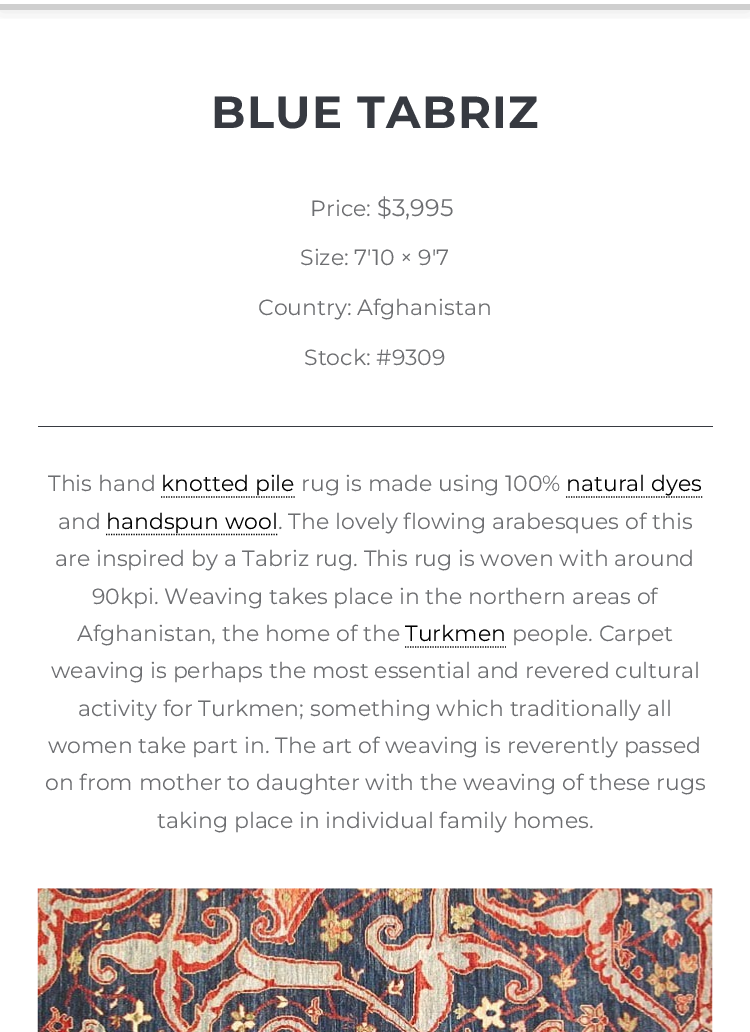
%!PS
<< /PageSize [750 1032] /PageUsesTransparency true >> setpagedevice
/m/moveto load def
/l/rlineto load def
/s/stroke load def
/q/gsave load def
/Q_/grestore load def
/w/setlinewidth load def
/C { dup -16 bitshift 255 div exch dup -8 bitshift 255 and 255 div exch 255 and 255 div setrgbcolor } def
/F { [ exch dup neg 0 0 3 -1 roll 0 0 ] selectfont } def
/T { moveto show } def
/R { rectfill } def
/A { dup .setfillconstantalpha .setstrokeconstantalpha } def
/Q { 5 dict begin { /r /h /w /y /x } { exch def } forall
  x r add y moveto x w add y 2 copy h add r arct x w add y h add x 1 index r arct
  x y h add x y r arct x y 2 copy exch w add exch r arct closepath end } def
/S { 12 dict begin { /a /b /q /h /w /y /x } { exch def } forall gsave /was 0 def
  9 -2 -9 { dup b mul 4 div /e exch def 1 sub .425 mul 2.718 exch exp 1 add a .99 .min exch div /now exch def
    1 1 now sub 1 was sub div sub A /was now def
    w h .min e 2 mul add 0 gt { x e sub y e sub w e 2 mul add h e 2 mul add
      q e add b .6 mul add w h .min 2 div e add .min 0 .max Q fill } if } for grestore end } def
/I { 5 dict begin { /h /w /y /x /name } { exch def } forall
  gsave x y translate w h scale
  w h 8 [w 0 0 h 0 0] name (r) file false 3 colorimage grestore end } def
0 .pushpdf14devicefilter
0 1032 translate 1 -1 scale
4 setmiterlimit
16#FFFFFF C
0 0 750 1032 R
q
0 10 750 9 rectclip
16#000000 C
0 -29 750 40 0 9.5 .1 S
Q_
16#CFCFCF C
0 4 750 6 R
/Montserrat-Bold 45 F
16#373A41 C
211 128 m 1.25 0 (BLUE TABRIZ) ashow
38 426 675 1 R
/Montserrat-Thin 22 F
16#6D6E71 C
(Price:) 310 216 T
/Montserrat-Thin 24 F
($3,995) 377 216 T
/Montserrat-Thin 22 F
(Size: 7'10 × 9'7) 300 265 T
(Country: Afghanistan) 258 315 T
(Stock: #9309) 304 365 T
(This hand) 48 491 T
16#000000 C
(knotted pile) 161 491 T
1.2 w
[1.25 1.25] 0 setdash
161 497 m 134 0 l s
16#6D6E71 C
(rug is made using 100%) 301 491 T
16#000000 C
(natural dyes) 566 491 T
566 497 m 136.5 0 l s
16#6D6E71 C
(and) 58 529 T
16#000000 C
106 534.5 m 171.5 0 l s
(handspun wool) 106 529 T
16#6D6E71 C
(. The lovely flowing arabesques of this) 278 529 T
(are inspired by a Tabriz rug. This rug is woven with around) 55 566 T
(90kpi. Weaving takes place in the northern areas of) 92 604 T
(Afghanistan, the home of the) 77 641 T
16#000000 C
(Turkmen) 405 641 T
405 647 m 101 0 l s
16#6D6E71 C
(people. Carpet) 512 641 T
(weaving is perhaps the most essential and revered cultural) 51 678 T
(activity for Turkmen; something which traditionally all) 78 716 T
(women take part in. The art of weaving is reverently passed) 48 753 T
(on from mother to daughter with the weaving of these rugs) 45 790 T
(taking place in individual family homes.) 157 828 T
(1.rgb) 37 888 676 144 I
.poppdf14devicefilter showpage
